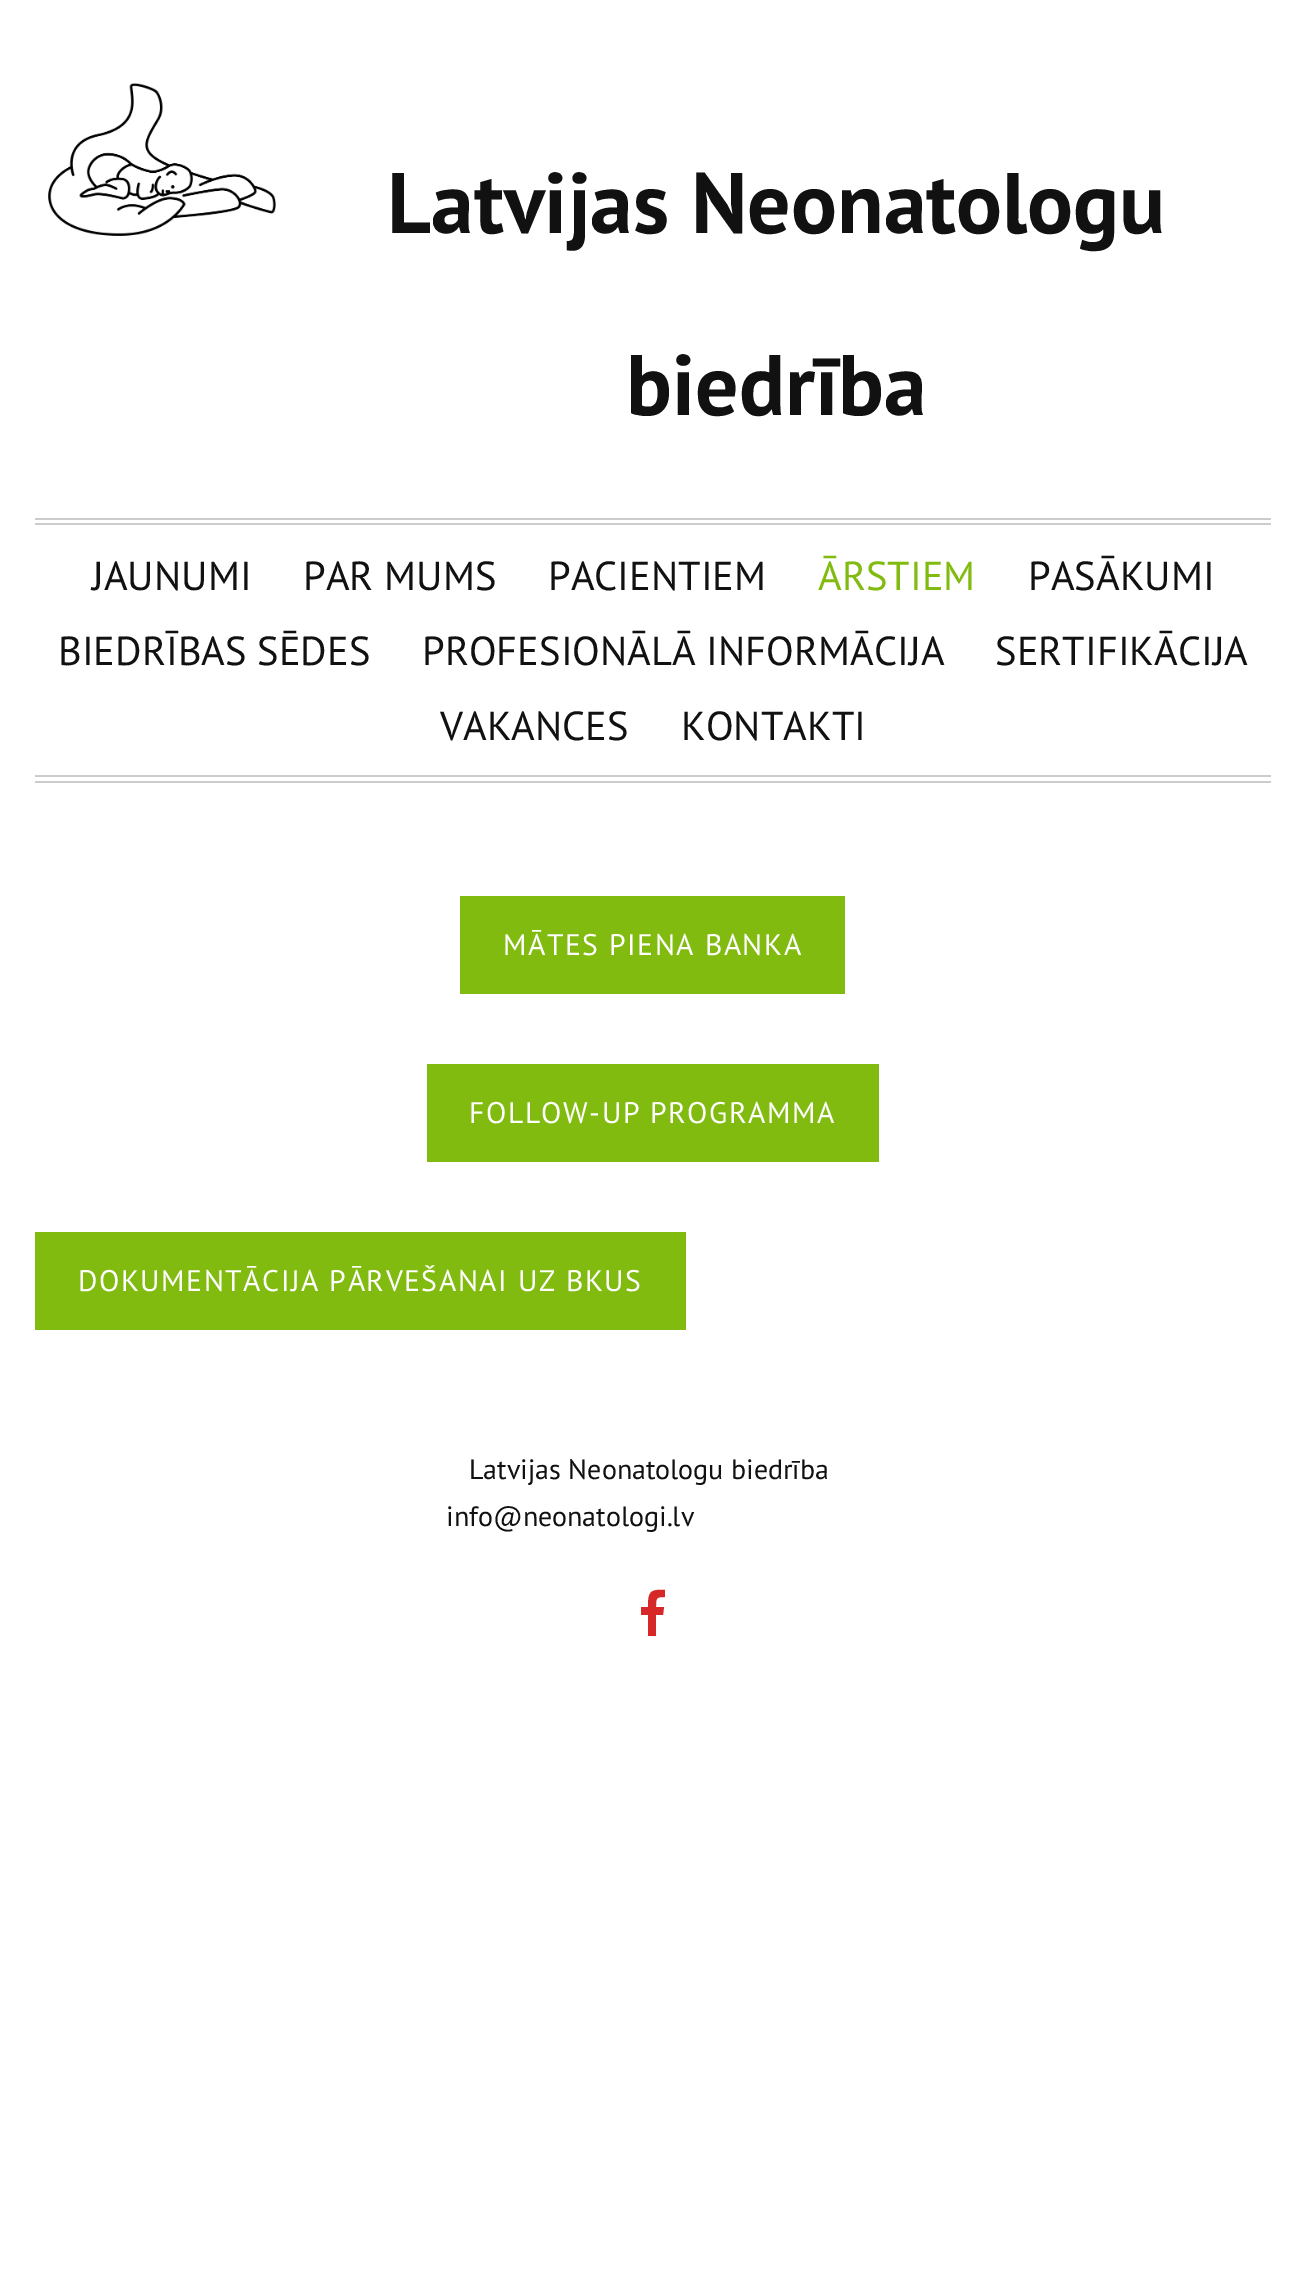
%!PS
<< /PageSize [1305 2270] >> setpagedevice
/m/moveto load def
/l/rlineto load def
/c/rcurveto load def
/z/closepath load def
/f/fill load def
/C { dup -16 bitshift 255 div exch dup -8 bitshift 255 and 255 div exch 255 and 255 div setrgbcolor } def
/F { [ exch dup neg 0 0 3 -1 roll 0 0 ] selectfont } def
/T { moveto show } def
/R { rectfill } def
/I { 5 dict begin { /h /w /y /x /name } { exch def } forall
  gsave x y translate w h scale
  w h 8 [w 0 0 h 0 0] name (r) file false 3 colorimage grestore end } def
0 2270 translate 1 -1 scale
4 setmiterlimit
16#FFFFFF C
0 0 1305 2270 R
(1.rgb) 48 83 228 153 I
/PTSans-Bold 85.75 F
16#111111 C
(Latvijas Neonatologu) 387 233 T
(biedrība) 626 415 T
16#CCCCCC C
35 518 1236 2 R
35 523 1236 2 R
35 775 1236 2 R
35 781 1236 2 R
/PTSans-Regular 40.5 F
16#111111 C
(JAUNUMI) 92 590 T
(PAR MUMS) 303 590 T
(PACIENTIEM) 548 590 T
16#82BB10 C
(ĀRSTIEM) 818 590 T
16#111111 C
(PASĀKUMI) 1028 590 T
(BIEDRĪBAS SĒDES) 58 665 T
(PROFESIONĀLĀ INFORMĀCIJA) 422 665 T
(SERTIFIKĀCIJA) 995 665 T
(VAKANCES) 440 740 T
(KONTAKTI) 681 740 T
16#82BB10 C
460 896 385 98 R
/PTSans-Regular 29.75 F
16#FFFFFF C
503 955 m 1.5 0 (MĀTES PIENA BANKA) ashow
16#82BB10 C
427 1064 452 98 R
16#FFFFFF C
469 1123 m 1.5 0 (FOLLOW-UP PROGRAMMA) ashow
16#82BB10 C
35 1232 651 98 R
16#FFFFFF C
78 1291 m 1.5 0 (DOKUMENTĀCIJA PĀRVEŠANAI UZ BKUS) ashow
/PTSans-Regular 28 F
16#111111 C
(Latvijas Neonatologu biedrība) 469 1479 T
(info@neonatologi.lv) 446 1526 T
16#D62828 C
656 1636 m 0 -21 l 7 0 l 1 -8 l -8 0 l 0 -9 0 -10 9 -10 c 0 -7 l -15 -1 -17 2 -17 17 c -7 0 l 0 8 l 7 0 l 0 21 l z f
showpage
